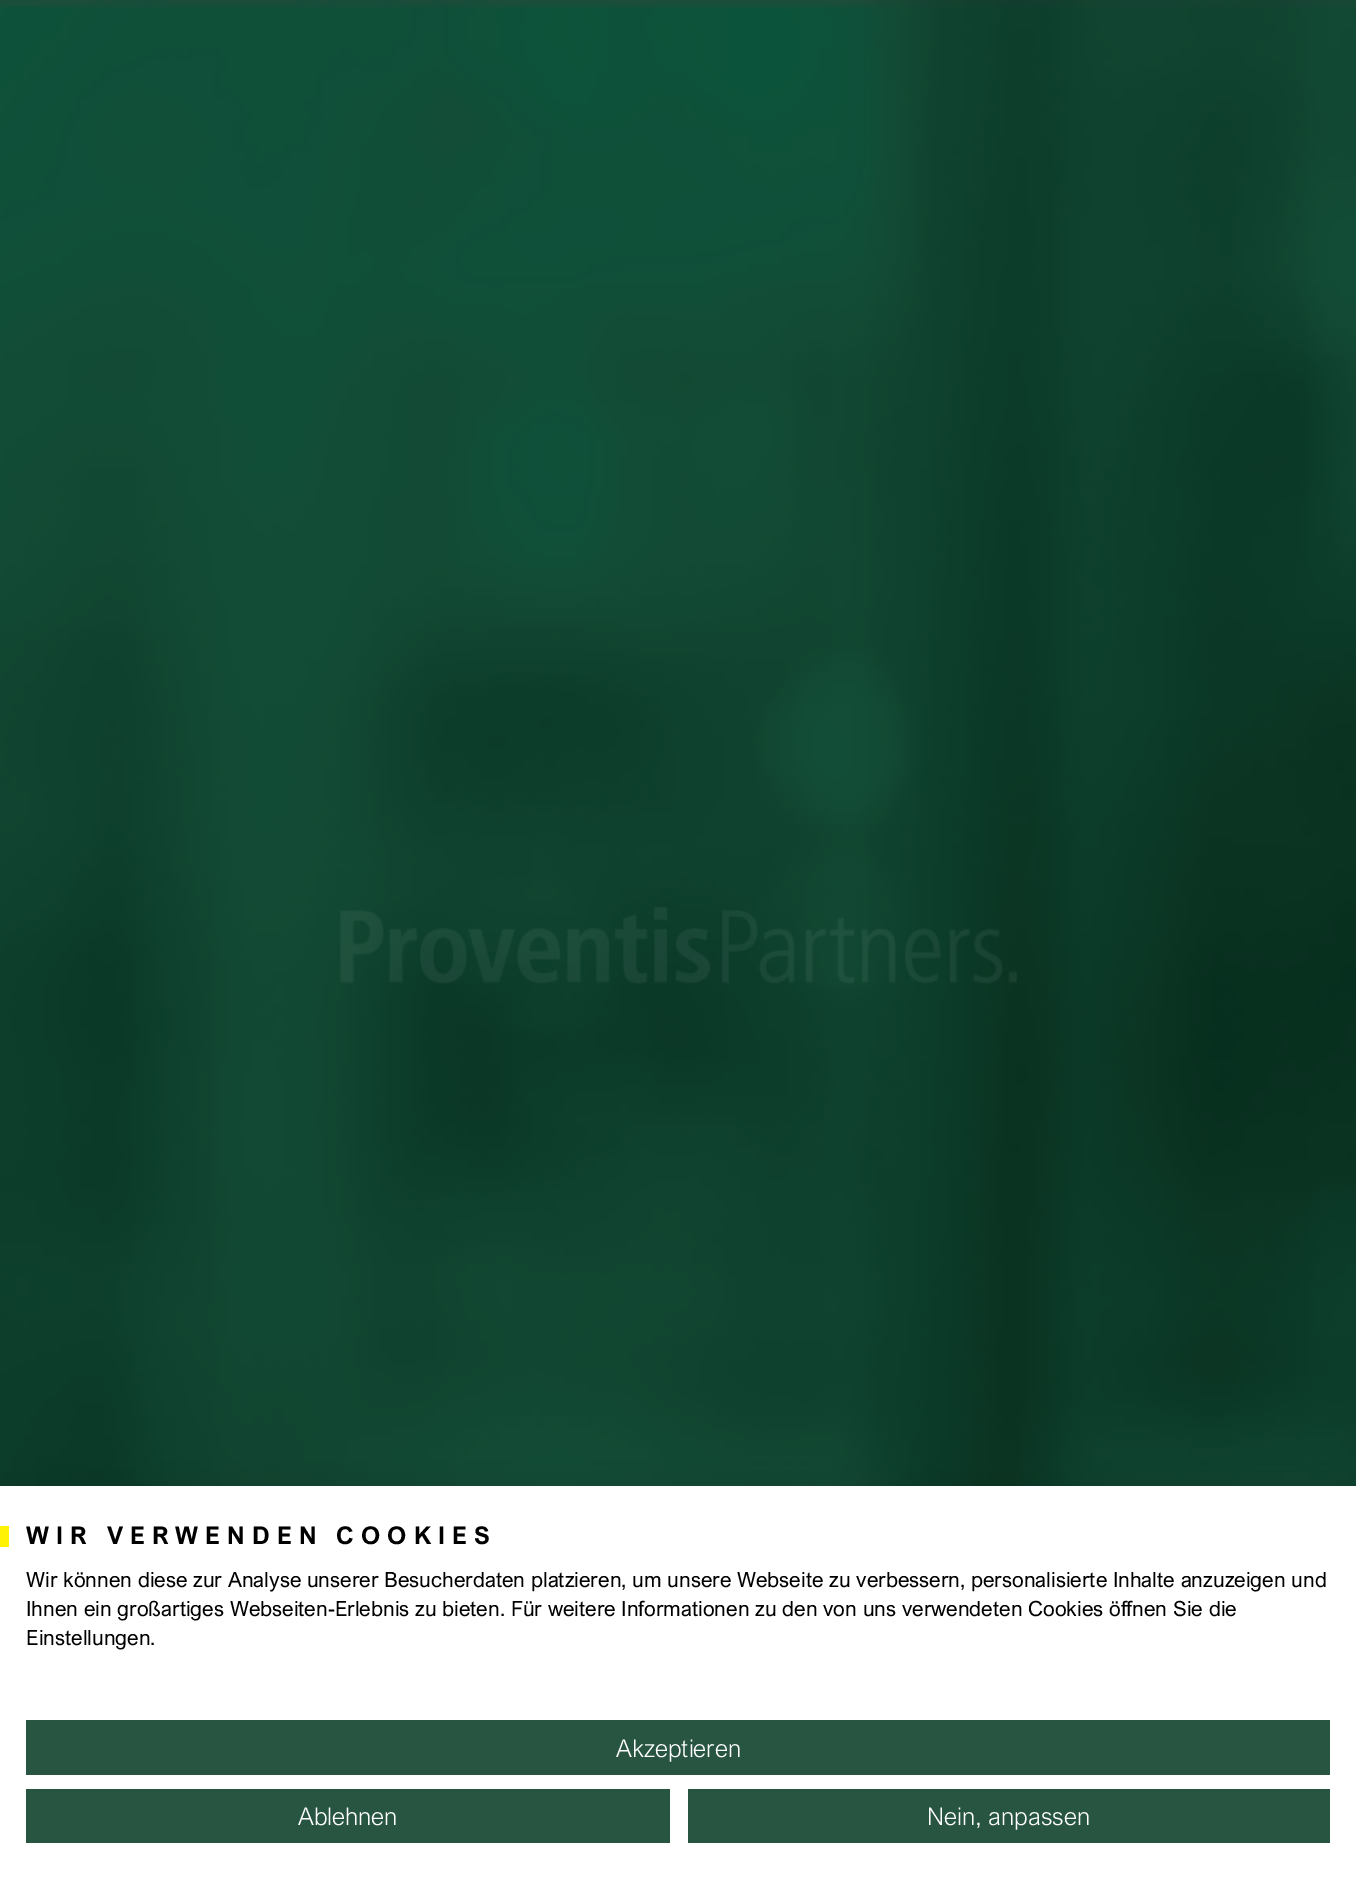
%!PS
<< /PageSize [1356 1889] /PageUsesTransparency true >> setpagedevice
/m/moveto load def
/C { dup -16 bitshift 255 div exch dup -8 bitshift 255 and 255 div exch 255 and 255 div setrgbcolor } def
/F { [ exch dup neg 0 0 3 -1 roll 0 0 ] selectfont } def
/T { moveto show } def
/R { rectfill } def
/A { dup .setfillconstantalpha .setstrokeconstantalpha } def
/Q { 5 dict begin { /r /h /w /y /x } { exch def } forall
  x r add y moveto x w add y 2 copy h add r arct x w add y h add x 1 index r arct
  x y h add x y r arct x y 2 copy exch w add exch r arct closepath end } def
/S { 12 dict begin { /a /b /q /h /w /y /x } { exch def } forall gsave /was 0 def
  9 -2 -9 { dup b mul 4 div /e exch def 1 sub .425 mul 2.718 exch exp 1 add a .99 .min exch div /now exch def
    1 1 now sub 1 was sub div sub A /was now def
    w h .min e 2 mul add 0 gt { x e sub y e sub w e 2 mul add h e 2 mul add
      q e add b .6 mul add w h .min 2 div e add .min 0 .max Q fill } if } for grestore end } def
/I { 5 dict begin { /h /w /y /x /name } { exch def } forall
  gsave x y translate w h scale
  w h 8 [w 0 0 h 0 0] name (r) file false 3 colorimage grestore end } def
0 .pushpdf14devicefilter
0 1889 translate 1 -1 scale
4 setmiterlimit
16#FFFFFF C
0 0 1356 1889 R
(1.rgb) 0 0 1356 1486 I
(2.rgb) 340 907 677 77 I
16#000000 C
0 1486 1356 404 0 21 .1 S
16#FFFFFF C
0 1486 1356 403 R
16#FFF205 C
0 1526 9 21 R
/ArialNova-Bold 24.5 F
16#000000 C
26 1544 m 7 0 (WIR VERWENDEN COOKIES) ashow
/ArialNova-Regular 21 F
(Wir können diese zur Analyse unserer Besucherdaten platzieren, um unsere Webseite zu verbessern, personalisierte Inhalte anzuzeigen und) 26 1587 T
(Ihnen ein großartiges Webseiten-Erlebnis zu bieten. Für weitere Informationen zu den von uns verwendeten Cookies öffnen Sie die) 26 1616 T
(Einstellungen.) 26 1645 T
16#285542 C
26 1720 1304 55 R
/ArialNova-Light 24.5 F
16#FFFFFF C
(Akzeptieren) 616 1757 T
16#285542 C
26 1789 644 54 R
16#FFFFFF C
(Ablehnen) 298 1825 T
16#285542 C
688 1789 642 54 R
16#FFFFFF C
(Nein, anpassen) 927 1825 T
.poppdf14devicefilter showpage
